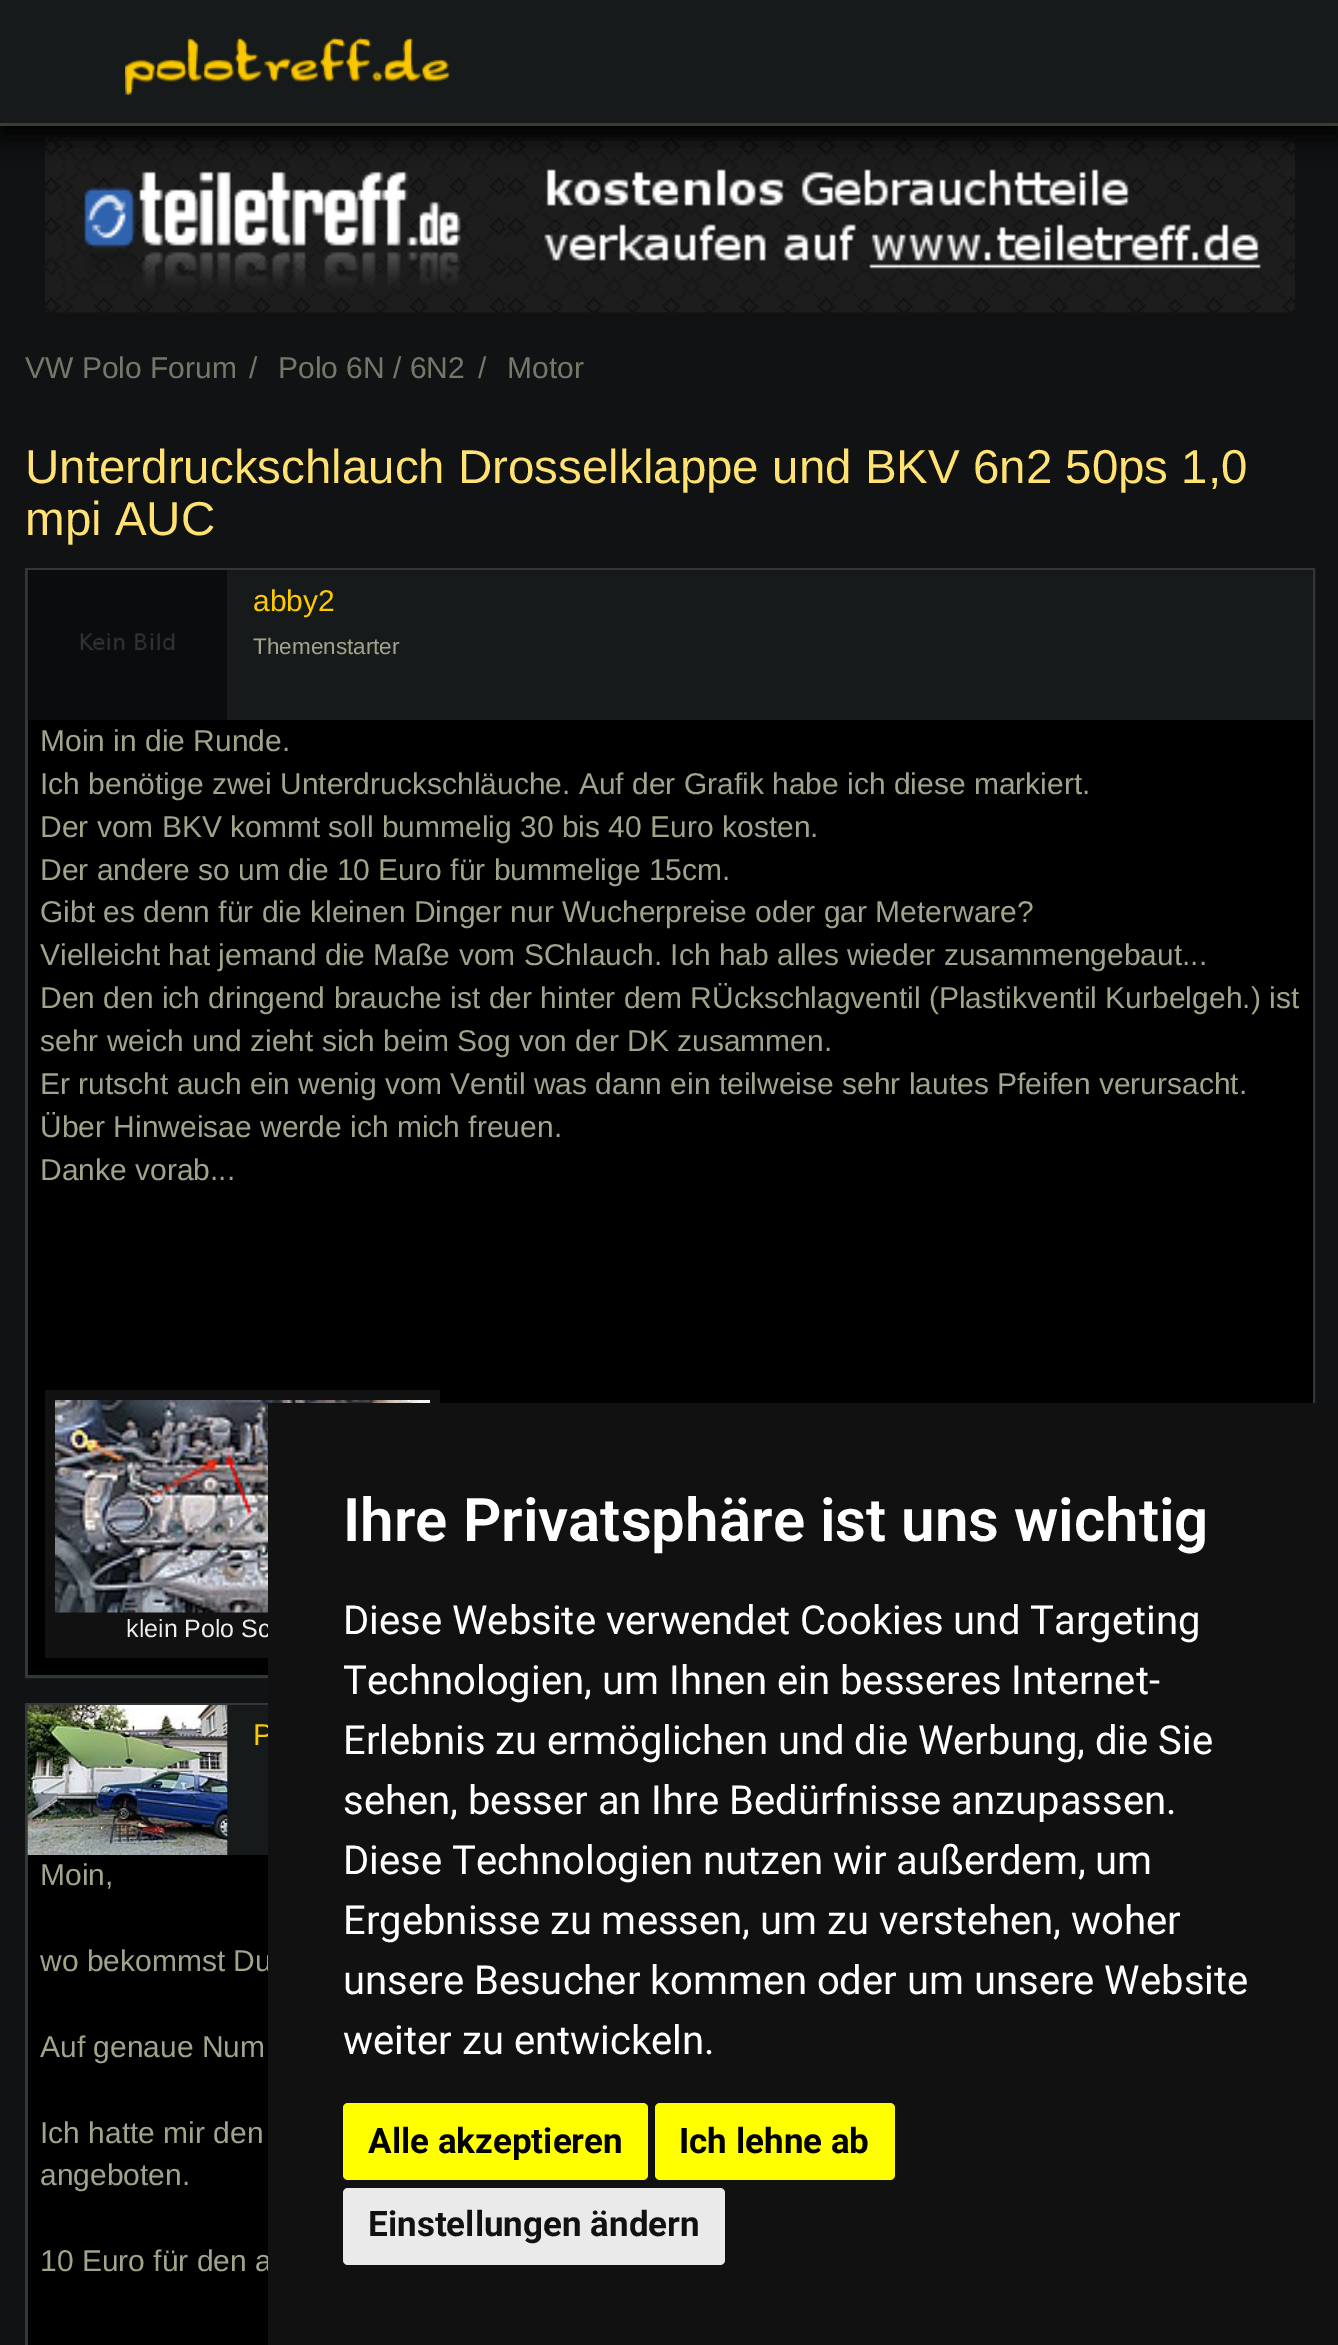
%!PS
<< /PageSize [1338 2345] /PageUsesTransparency true >> setpagedevice
/f/fill load def
/w/setlinewidth load def
/C { dup -16 bitshift 255 div exch dup -8 bitshift 255 and 255 div exch 255 and 255 div setrgbcolor } def
/F { [ exch dup neg 0 0 3 -1 roll 0 0 ] selectfont } def
/T { moveto show } def
/R { rectfill } def
/A { dup .setfillconstantalpha .setstrokeconstantalpha } def
/Q { 5 dict begin { /r /h /w /y /x } { exch def } forall
  x r add y moveto x w add y 2 copy h add r arct x w add y h add x 1 index r arct
  x y h add x y r arct x y 2 copy exch w add exch r arct closepath end } def
/S { 12 dict begin { /a /b /q /h /w /y /x } { exch def } forall gsave /was 0 def
  9 -2 -9 { dup b mul 4 div /e exch def 1 sub .425 mul 2.718 exch exp 1 add a .99 .min exch div /now exch def
    1 1 now sub 1 was sub div sub A /was now def
    w h .min e 2 mul add 0 gt { x e sub y e sub w e 2 mul add h e 2 mul add
      q e add b .6 mul add w h .min 2 div e add .min 0 .max Q fill } if } for grestore end } def
/I { 5 dict begin { /h /w /y /x /name } { exch def } forall
  gsave x y translate w h scale
  w h 8 [w 0 0 h 0 0] name (r) file false 3 colorimage grestore end } def
0 .pushpdf14devicefilter
0 2345 translate 1 -1 scale
4 setmiterlimit
16#101214 C
0 0 1338 2345 R
(2.rgb) 45 137 1250 176 I
16#000000 C
0 13 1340 125 0 12.5 1 S
16#171A1A C
0 0 1338 123 R
16#383F31 C
0 123 1338 3 R
(1.rgb) 125 37 325 58 I
/LiberationSans-Regular 30 F
16#72796A C
(VW Polo Forum) 25 378 T
(/) 249 378 T
(Polo 6N / 6N2) 278 378 T
(/) 478 378 T
(Motor) 507 378 T
/LiberationSans-Regular 47.5 F
16#FFE271 C
(Unterdruckschlauch Drosselklappe und BKV 6n2 50ps 1,0) 25 483 T
(mpi AUC) 25 535 T
16#323838 C
3 w
26.5 569.5 1287 1107 rectstroke
16#171A1A C
227 570 1086 150 R
(3.rgb) 27 570 200 150 I
/LiberationSans-Regular 30 F
16#FDCA00 C
(abby2) 253 611 T
/LiberationSans-Regular 22.5 F
16#A1A48B C
(Themenstarter) 253 654 T
16#000000 C
28 720 1285 955 R
/LiberationSans-Regular 30 F
16#A1A48B C
(Moin in die Runde.) 40 751 T
(Ich benötige zwei Unterdruckschläuche. Auf der Grafik habe ich diese markiert.) 40 794 T
(Der vom BKV kommt soll bummelig 30 bis 40 Euro kosten.) 40 837 T
(Der andere so um die 10 Euro für bummelige 15cm.) 40 880 T
(Gibt es denn für die kleinen Dinger nur Wucherpreise oder gar Meterware?) 40 922 T
(Vielleicht hat jemand die Maße vom SChlauch. Ich hab alles wieder zusammengebaut...) 40 965 T
(Den den ich dringend brauche ist der hinter dem RÜckschlagventil \(Plastikventil Kurbelgeh.\) ist) 40 1008 T
(sehr weich und zieht sich beim Sog von der DK zusammen.) 40 1051 T
(Er rutscht auch ein wenig vom Ventil was dann ein teilweise sehr lautes Pfeifen verursacht.) 40 1094 T
(Über Hinweisae werde ich mich freuen.) 40 1137 T
(Danke vorab...) 40 1180 T
16#111111 C
45 1390 395 268 R
(4.rgb) 55 1400 375 213 I
/LiberationSans-Regular 25 F
16#EEEEEE C
(klein Polo Sc) 126 1637 T
16#323838 C
26.5 1704.5 1287 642 rectstroke
16#171A1A C
227 1705 41 150 R
(5.rgb) 27 1705 201 150 I
/LiberationSans-Regular 30 F
16#FDCA00 C
(P) 253 1745 T
16#000000 C
28 1855 240 490 R
16#A1A48B C
(Moin,) 40 1885 T
(wo bekommst Du) 40 1971 T
(Auf genaue Num) 40 2057 T
(Ich hatte mir den) 40 2143 T
(angeboten.) 40 2185 T
(10 Euro für den a) 40 2271 T
16#111111 C
268 1403 1070 942 R
/Roboto-SemiBold 60 F
16#FFFFFF C
(Ihre Privatsphäre ist uns wichtig) 343 1541 T
/Roboto-Regular 40 F
(Diese Website verwendet Cookies und Targeting) 343 1634 T
(Technologien, um Ihnen ein besseres Internet-) 343 1694 T
(Erlebnis zu ermöglichen und die Werbung, die Sie) 343 1754 T
(sehen, besser an Ihre Bedürfnisse anzupassen.) 343 1814 T
(Diese Technologien nutzen wir außerdem, um) 343 1874 T
(Ergebnisse zu messen, um zu verstehen, woher) 343 1934 T
(unsere Besucher kommen oder um unsere Website) 343 1994 T
(weiter zu entwickeln.) 343 2054 T
16#FFFF00 C
343 2103 305 77 5 Q f
/Roboto-Bold 35 F
16#000000 C
(Alle akzeptieren) 368 2153 T
16#FFFF00 C
655 2103 240 77 5 Q f
16#000000 C
(Ich lehne ab) 679 2153 T
16#EAEAEA C
343 2188 382 77 5 Q f
16#111111 C
(Einstellungen ändern) 368 2236 T
.poppdf14devicefilter showpage
